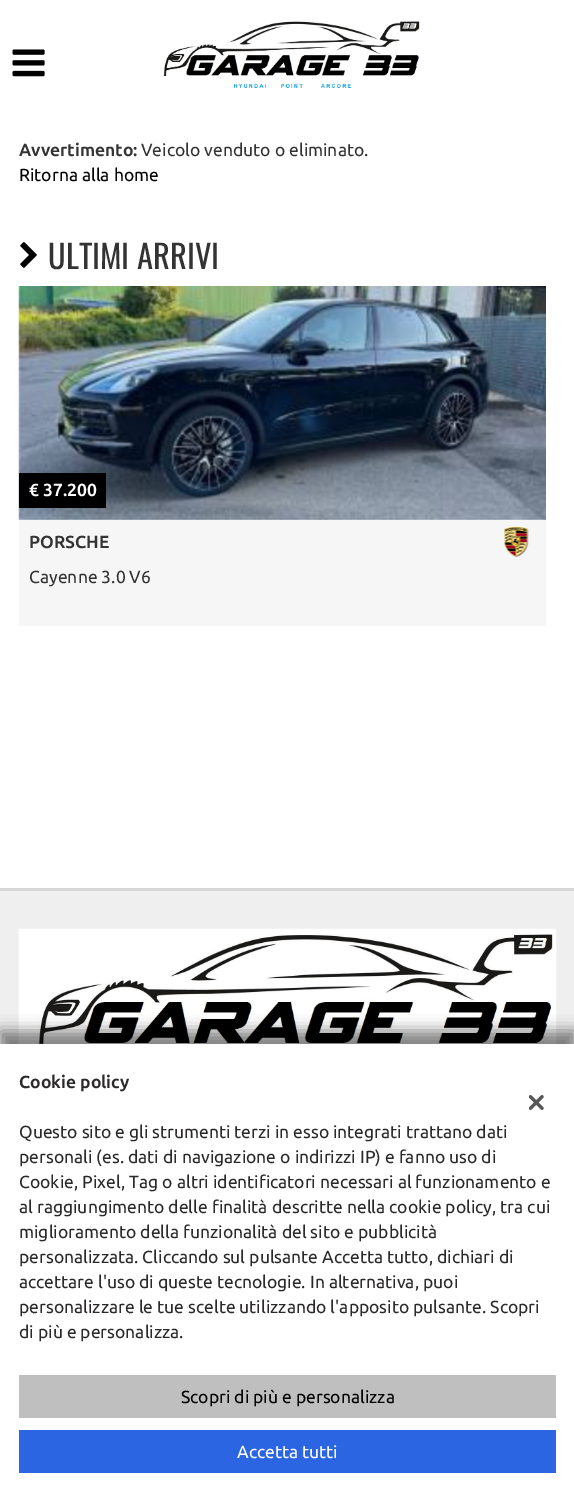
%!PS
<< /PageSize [574 1509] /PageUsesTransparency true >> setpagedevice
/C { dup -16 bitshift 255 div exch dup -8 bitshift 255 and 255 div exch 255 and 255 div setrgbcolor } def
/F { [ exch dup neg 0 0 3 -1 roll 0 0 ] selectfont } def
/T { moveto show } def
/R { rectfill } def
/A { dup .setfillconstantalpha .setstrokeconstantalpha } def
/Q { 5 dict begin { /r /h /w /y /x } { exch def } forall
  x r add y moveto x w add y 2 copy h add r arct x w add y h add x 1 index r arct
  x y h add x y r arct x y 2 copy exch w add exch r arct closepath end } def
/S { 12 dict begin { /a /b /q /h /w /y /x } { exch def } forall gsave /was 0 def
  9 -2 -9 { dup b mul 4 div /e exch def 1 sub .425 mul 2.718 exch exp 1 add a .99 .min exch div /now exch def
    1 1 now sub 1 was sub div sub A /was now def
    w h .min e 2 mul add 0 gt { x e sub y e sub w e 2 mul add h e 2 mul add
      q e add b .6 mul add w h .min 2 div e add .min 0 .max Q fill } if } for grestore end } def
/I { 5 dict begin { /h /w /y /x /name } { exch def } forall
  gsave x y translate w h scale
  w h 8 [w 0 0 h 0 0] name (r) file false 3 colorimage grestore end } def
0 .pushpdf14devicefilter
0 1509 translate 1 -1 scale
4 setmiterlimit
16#FFFFFF C
0 0 574 1509 R
(1.rgb) 12 49 33 28 I
(2.rgb) 163 21 257 67 I
/Ubuntu-Bold 17.5 F
16#333333 C
(Avvertimento:) 19 156 T
/Ubuntu-Regular 17.5 F
(Veicolo venduto o eliminato.) 141 156 T
16#000000 C
(Ritorna alla home) 19 181 T
(3.rgb) 20 242 17 26 I
/Oswald-Regular 32.5 F
16#333333 C
(ULTIMI ARRIVI) 48 269 T
16#F6F6F6 C
19 286 527 340 R
(4.rgb) 18 286 528 234 I
16#000000 C
19 473 87 35 R
/Ubuntu-Bold 17.5 F
16#FFFFFF C
(€ 37.200) 29 496 T
16#333333 C
(PORSCHE) 29 548 T
(5.rgb) 503 526 26 31 I
/Ubuntu-Regular 17.5 F
(Cayenne 3.0 V6) 29 583 T
16#D6D6D6 C
0 888 574 3 R
16#EFEFEF C
0 891 574 153 R
(6.rgb) 18 928 539 116 I
16#000000 C
0 1031 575 467 0 7.5 .5 S
16#FFFFFF C
0 1044 574 465 R
/Ubuntu-Bold 17.5 F
16#2B2929 C
(Cookie policy) 19 1088 T
/Ubuntu-Regular 17.5 F
(Questo sito e gli strumenti terzi in esso integrati trattano dati) 19 1138 T
(personali \(es. dati di navigazione o indirizzi IP\) e fanno uso di) 19 1163 T
(Cookie, Pixel, Tag o altri identificatori necessari al funzionamento e) 19 1188 T
(al raggiungimento delle finalità descritte nella cookie policy, tra cui) 19 1213 T
(miglioramento della funzionalità del sito e pubblicità) 19 1238 T
(personalizzata. Cliccando sul pulsante Accetta tutto, dichiari di) 19 1263 T
(accettare l'uso di queste tecnologie. In alternativa, puoi) 19 1288 T
(personalizzare le tue scelte utilizzando l'apposito pulsante. Scopri) 19 1313 T
(di più e personalizza.) 19 1338 T
16#BFBFBF C
19 1375 537 43 R
16#000000 C
(Scopri di più e personalizza) 181 1403 T
16#2C65E1 C
19 1430 537 43 R
16#FFFFFF C
(Accetta tutti) 237 1458 T
(7.rgb) 529 1095 15 15 I
.poppdf14devicefilter showpage
